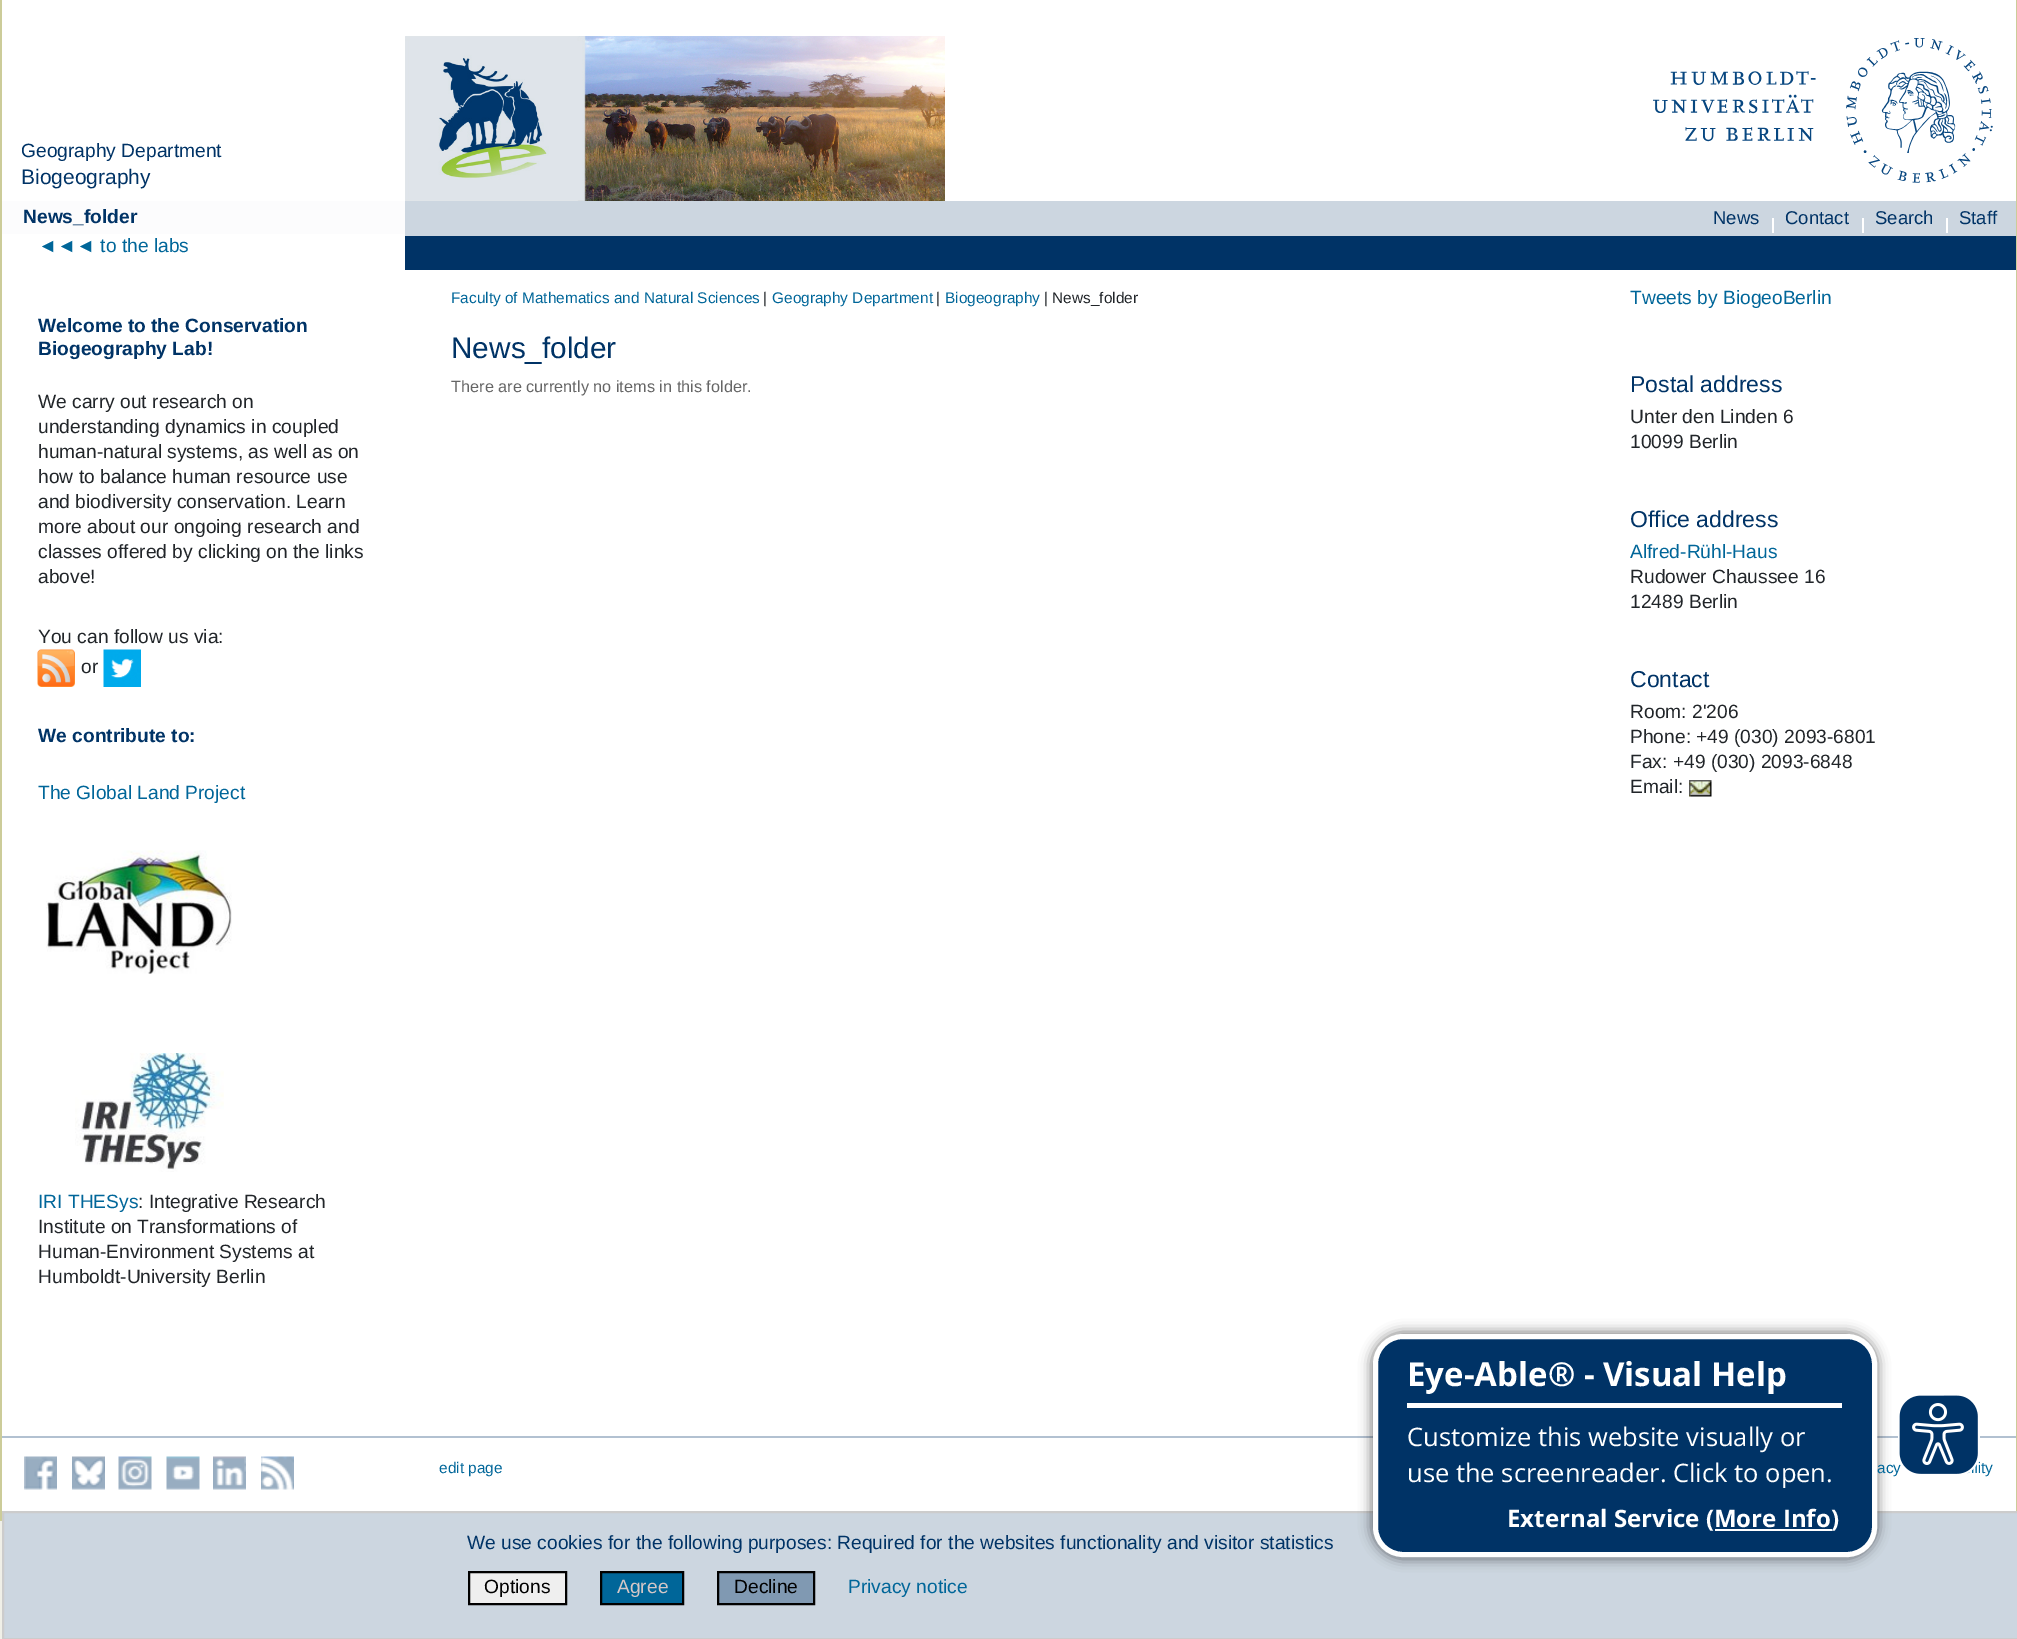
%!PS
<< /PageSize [2017 1639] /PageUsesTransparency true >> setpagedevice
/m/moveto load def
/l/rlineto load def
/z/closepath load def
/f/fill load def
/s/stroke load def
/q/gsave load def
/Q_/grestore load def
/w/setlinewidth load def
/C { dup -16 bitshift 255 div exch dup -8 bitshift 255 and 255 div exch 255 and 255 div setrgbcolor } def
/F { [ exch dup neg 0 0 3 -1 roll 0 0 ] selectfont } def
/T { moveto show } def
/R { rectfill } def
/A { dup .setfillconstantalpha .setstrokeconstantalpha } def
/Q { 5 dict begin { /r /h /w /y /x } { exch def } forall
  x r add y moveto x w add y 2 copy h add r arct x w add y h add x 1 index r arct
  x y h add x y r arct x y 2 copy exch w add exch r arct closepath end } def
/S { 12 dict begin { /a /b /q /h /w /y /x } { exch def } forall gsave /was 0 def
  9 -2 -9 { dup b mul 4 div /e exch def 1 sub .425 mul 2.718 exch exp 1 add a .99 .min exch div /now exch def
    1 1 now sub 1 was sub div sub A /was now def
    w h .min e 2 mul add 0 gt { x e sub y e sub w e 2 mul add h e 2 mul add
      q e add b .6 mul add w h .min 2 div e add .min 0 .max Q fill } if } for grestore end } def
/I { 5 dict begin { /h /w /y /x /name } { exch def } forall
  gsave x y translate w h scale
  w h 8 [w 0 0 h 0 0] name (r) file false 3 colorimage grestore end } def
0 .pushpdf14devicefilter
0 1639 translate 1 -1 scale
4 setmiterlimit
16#F0F0E8 C
0 0 2017 1639 R
16#FFFFFF C
2 0 2014 1511 R
(1.rgb) 405 36 540 165 I
(2.rgb) 1653 38 340 145 I
16#CCCC99 C
2016 0 1 1511 R
0 0 2 1521 R
/LiberationSans-Regular 19.2 F
16#003366 C
(Geography Department) 21 157 T
/LiberationSans-Regular 21 F
(Biogeography) 21 184 T
16#FCFCFD C
2 201 403 33 R
/LiberationSans-Bold 19.2 F
16#003366 C
(News_folder) 23 223 T
/LiberationSans-Regular 19.2 F
16#006699 C
(◄◄◄ to the labs) 38 252 T
/LiberationSans-Bold 19.2 F
16#003366 C
(Welcome to the Conservation) 38 332 T
(Biogeography Lab!) 38 355 T
/LiberationSans-Regular 19.2 F
16#212529 C
(We carry out research on) 38 408 T
(understanding dynamics in coupled) 38 433 T
(human-natural systems, as well as on) 38 458 T
(how to balance human resource use) 38 483 T
(and biodiversity conservation. Learn) 38 508 T
(more about our ongoing research and) 38 533 T
(classes offered by clicking on the links) 38 558 T
(above!) 38 583 T
(You can follow us via:) 38 643 T
(3.rgb) 37 649 38 38 I
(or) 81 673 T
(4.rgb) 103 649 38 38 I
/LiberationSans-Bold 19.2 F
16#003366 C
(We contribute to:) 38 742 T
/LiberationSans-Regular 19.2 F
16#006699 C
(The Global Land Project) 38 799 T
(5.rgb) 46 850 186 124 I
(6.rgb) 75 1053 149 119 I
(IRI THESys) 38 1208 T
16#212529 C
(: Integrative Research) 138 1208 T
(Institute on Transformations of) 38 1233 T
(Human-Environment Systems at) 38 1258 T
(Humboldt-University Berlin) 38 1283 T
16#CCD6E0 C
405 201 1611 35 R
/LiberationSans-Regular 18.5 F
16#003366 C
(News) 1713 224 T
16#FFFFFF C
1772 218 2 15 R
16#003366 C
(Contact) 1785 224 T
16#FFFFFF C
1862 218 2 15 R
16#003366 C
(Search) 1875 224 T
16#FFFFFF C
1946 218 2 15 R
16#003366 C
(Staff) 1959 224 T
405 236 1611 34 R
/LiberationSans-Regular 15.4 F
16#006699 C
(Faculty of Mathematics and Natural Sciences) 451 303 T
16#212529 C
(|) 763 303 T
16#006699 C
(Geography Department) 772 303 T
16#212529 C
(|) 936 303 T
16#006699 C
(Biogeography) 945 303 T
16#212529 C
(| News_folder) 1044 303 T
/LiberationSans-Regular 29.75 F
16#003366 C
(News_folder) 451 358 T
/LiberationSans-Regular 16.3 F
16#666666 C
(There are currently no items in this folder.) 451 392 T
/LiberationSans-Regular 19.2 F
16#006699 C
(Tweets by BiogeoBerlin) 1630 304 T
/LiberationSans-Regular 23 F
16#003366 C
(Postal address) 1630 392 T
/LiberationSans-Regular 19.2 F
16#212529 C
(Unter den Linden 6) 1630 423 T
(10099 Berlin) 1630 448 T
/LiberationSans-Regular 23 F
16#003366 C
(Office address) 1630 527 T
/LiberationSans-Regular 19.2 F
16#006699 C
(Alfred-Rühl-Haus) 1630 558 T
16#212529 C
(Rudower Chaussee 16) 1630 583 T
(12489 Berlin) 1630 608 T
/LiberationSans-Regular 23 F
16#003366 C
(Contact) 1630 687 T
/LiberationSans-Regular 19.2 F
16#212529 C
(Room: 2'206) 1630 718 T
(Phone: +49 \(030\) 2093-6801) 1630 743 T
(Fax: +49 \(030\) 2093-6848) 1630 768 T
(Email:) 1630 793 T
(7.rgb) 1689 780 23 17 I
16#B2C1D1 C
2 1436 2014 2 R
16#CCD6E0 C
3 1512 m 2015 0 l 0 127 l -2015 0 l z q f Q_
16#CCCCCC C
2 w
s
16#000000 C
1371 1332 507 227 32 6 .5 S
16#003366 C
1375.5 1336.5 499 218 27.5 Q q f Q_
16#FFFFFF C
5 w
s
1407 1403 435 5 R
/OpenSans-Bold 33 F
(Eye-Able® - Visual Help) 1407 1386 T
/OpenSans-Regular 25.5 F
(Customize this website visually or) 1407 1446 T
(use the screenreader. Click to open.) 1407 1482 T
/OpenSans-Bold 24 F
(External Service \(More Info) 1507 1527 T
1715 1529 117 2 R
(\)) 1831 1527 T
/LiberationSans-Regular 15.4 F
16#006699 C
(acy) 1877 1473 T
(lity) 1974 1473 T
(8.rgb) 1898 1395 82 79 I
(9.rgb) 24 1456 33 34 I
(10.rgb) 72 1456 33 34 I
(11.rgb) 118 1456 34 34 I
(12.rgb) 166 1456 34 34 I
(13.rgb) 213 1456 33 34 I
(14.rgb) 261 1456 33 34 I
(edit page) 439 1473 T
/LiberationSans-Regular 19.2 F
16#003366 C
(We use cookies for the following purposes: Required for the websites functionality and visitor statistics) 467 1549 T
16#EFEFEF C
469 1572 m 97 0 l 0 32 l -97 0 l z q f Q_
16#000000 C
2 w
s
(Options) 484 1593 T
16#006699 C
601 1572 m 82 0 l 0 32 l -82 0 l z q f Q_
16#000000 C
s
16#D5C7C7 C
(Agree) 617 1593 T
16#8099B2 C
718 1572 m 96 0 l 0 32 l -96 0 l z q f Q_
16#000000 C
s
(Decline) 734 1593 T
16#006699 C
(Privacy notice) 848 1593 T
.poppdf14devicefilter showpage
